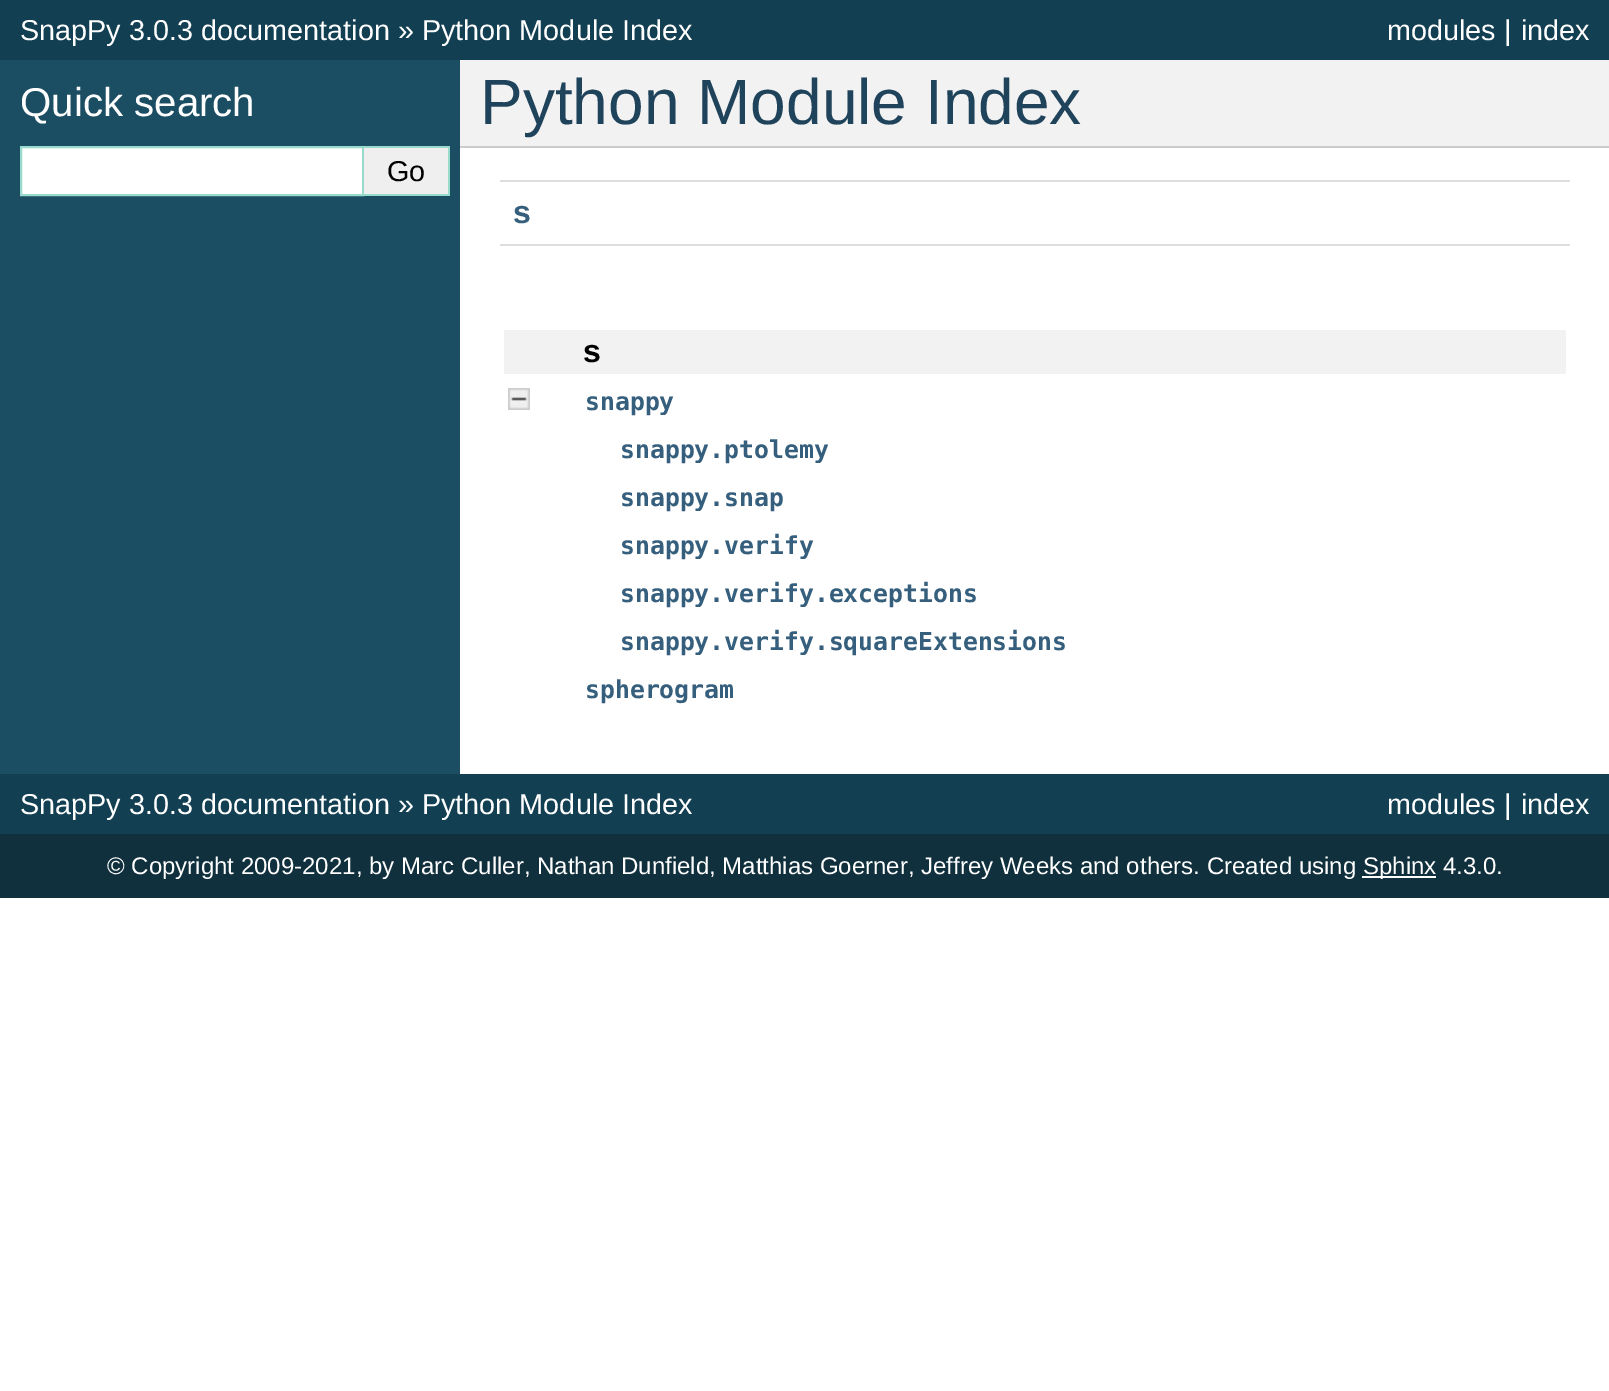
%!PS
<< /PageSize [1609 1391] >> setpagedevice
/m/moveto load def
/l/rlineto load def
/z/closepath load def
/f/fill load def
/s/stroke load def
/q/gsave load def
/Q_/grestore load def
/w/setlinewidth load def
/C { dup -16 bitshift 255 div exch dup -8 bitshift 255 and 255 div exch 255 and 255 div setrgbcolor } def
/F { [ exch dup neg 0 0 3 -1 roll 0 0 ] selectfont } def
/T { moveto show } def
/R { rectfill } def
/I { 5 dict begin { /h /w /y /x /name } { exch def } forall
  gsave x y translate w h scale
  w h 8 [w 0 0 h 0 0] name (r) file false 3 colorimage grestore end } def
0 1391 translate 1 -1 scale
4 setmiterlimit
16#FFFFFF C
0 0 1609 1391 R
16#11303D C
0 834 1609 64 R
16#133F52 C
0 0 1609 60 R
/LiberationSans-Regular 28.8 F
16#FFFFFF C
(SnapPy 3.0.3 documentation » Python Module Index) 20 40 T
(modules |) 1387 40 T
(index) 1521 40 T
16#1C4E63 C
0 60 460 714 R
/LiberationSans-Regular 40.25 F
16#FFFFFF C
(Quick search) 20 116 T
21 147 m 342 0 l 0 48 l -342 0 l z q f Q_
16#98DBCC C
2 w
s
16#EFEFEF C
364 148 84 46 R
16#98DBCC C
364 146 86 2 R
448 146 2 50 R
364 194 86 2 R
/LiberationSans-Regular 28.8 F
16#000000 C
(Go) 387 181 T
16#F2F2F2 C
460 60 1149 86 R
16#CCCCCC C
460 146 1149 2 R
/LiberationSans-Regular 64 F
16#20435C C
(Python Module Index) 480 124 T
16#DDDDDD C
500 180 1070 2 R
500 244 1070 2 R
/LiberationSans-Bold 32 F
16#355F7C C
(s) 513 223 T
16#F2F2F2 C
504 330 1062 44 R
16#000000 C
(s) 583 362 T
(1.rgb) 508 388 22 22 I
/DejaVuSansMono-Bold 24.75 F
16#355F7C C
(snappy) 585 410 T
(snappy.ptolemy) 620 458 T
(snappy.snap) 620 506 T
(snappy.verify) 620 554 T
(snappy.verify.exceptions) 620 602 T
(snappy.verify.squareExtensions) 620 650 T
(spherogram) 585 698 T
16#133F52 C
0 774 1609 60 R
/LiberationSans-Regular 28.8 F
16#FFFFFF C
(SnapPy 3.0.3 documentation » Python Module Index) 20 814 T
(modules |) 1387 814 T
(index) 1521 814 T
/LiberationSans-Regular 24 F
(© Copyright 2009-2021, by Marc Culler, Nathan Dunfield, Matthias Goerner, Jeffrey Weeks and others. Created using) 107 874 T
1362 876 74 2 R
(Sphinx 4.3.0.) 1363 874 T
showpage
